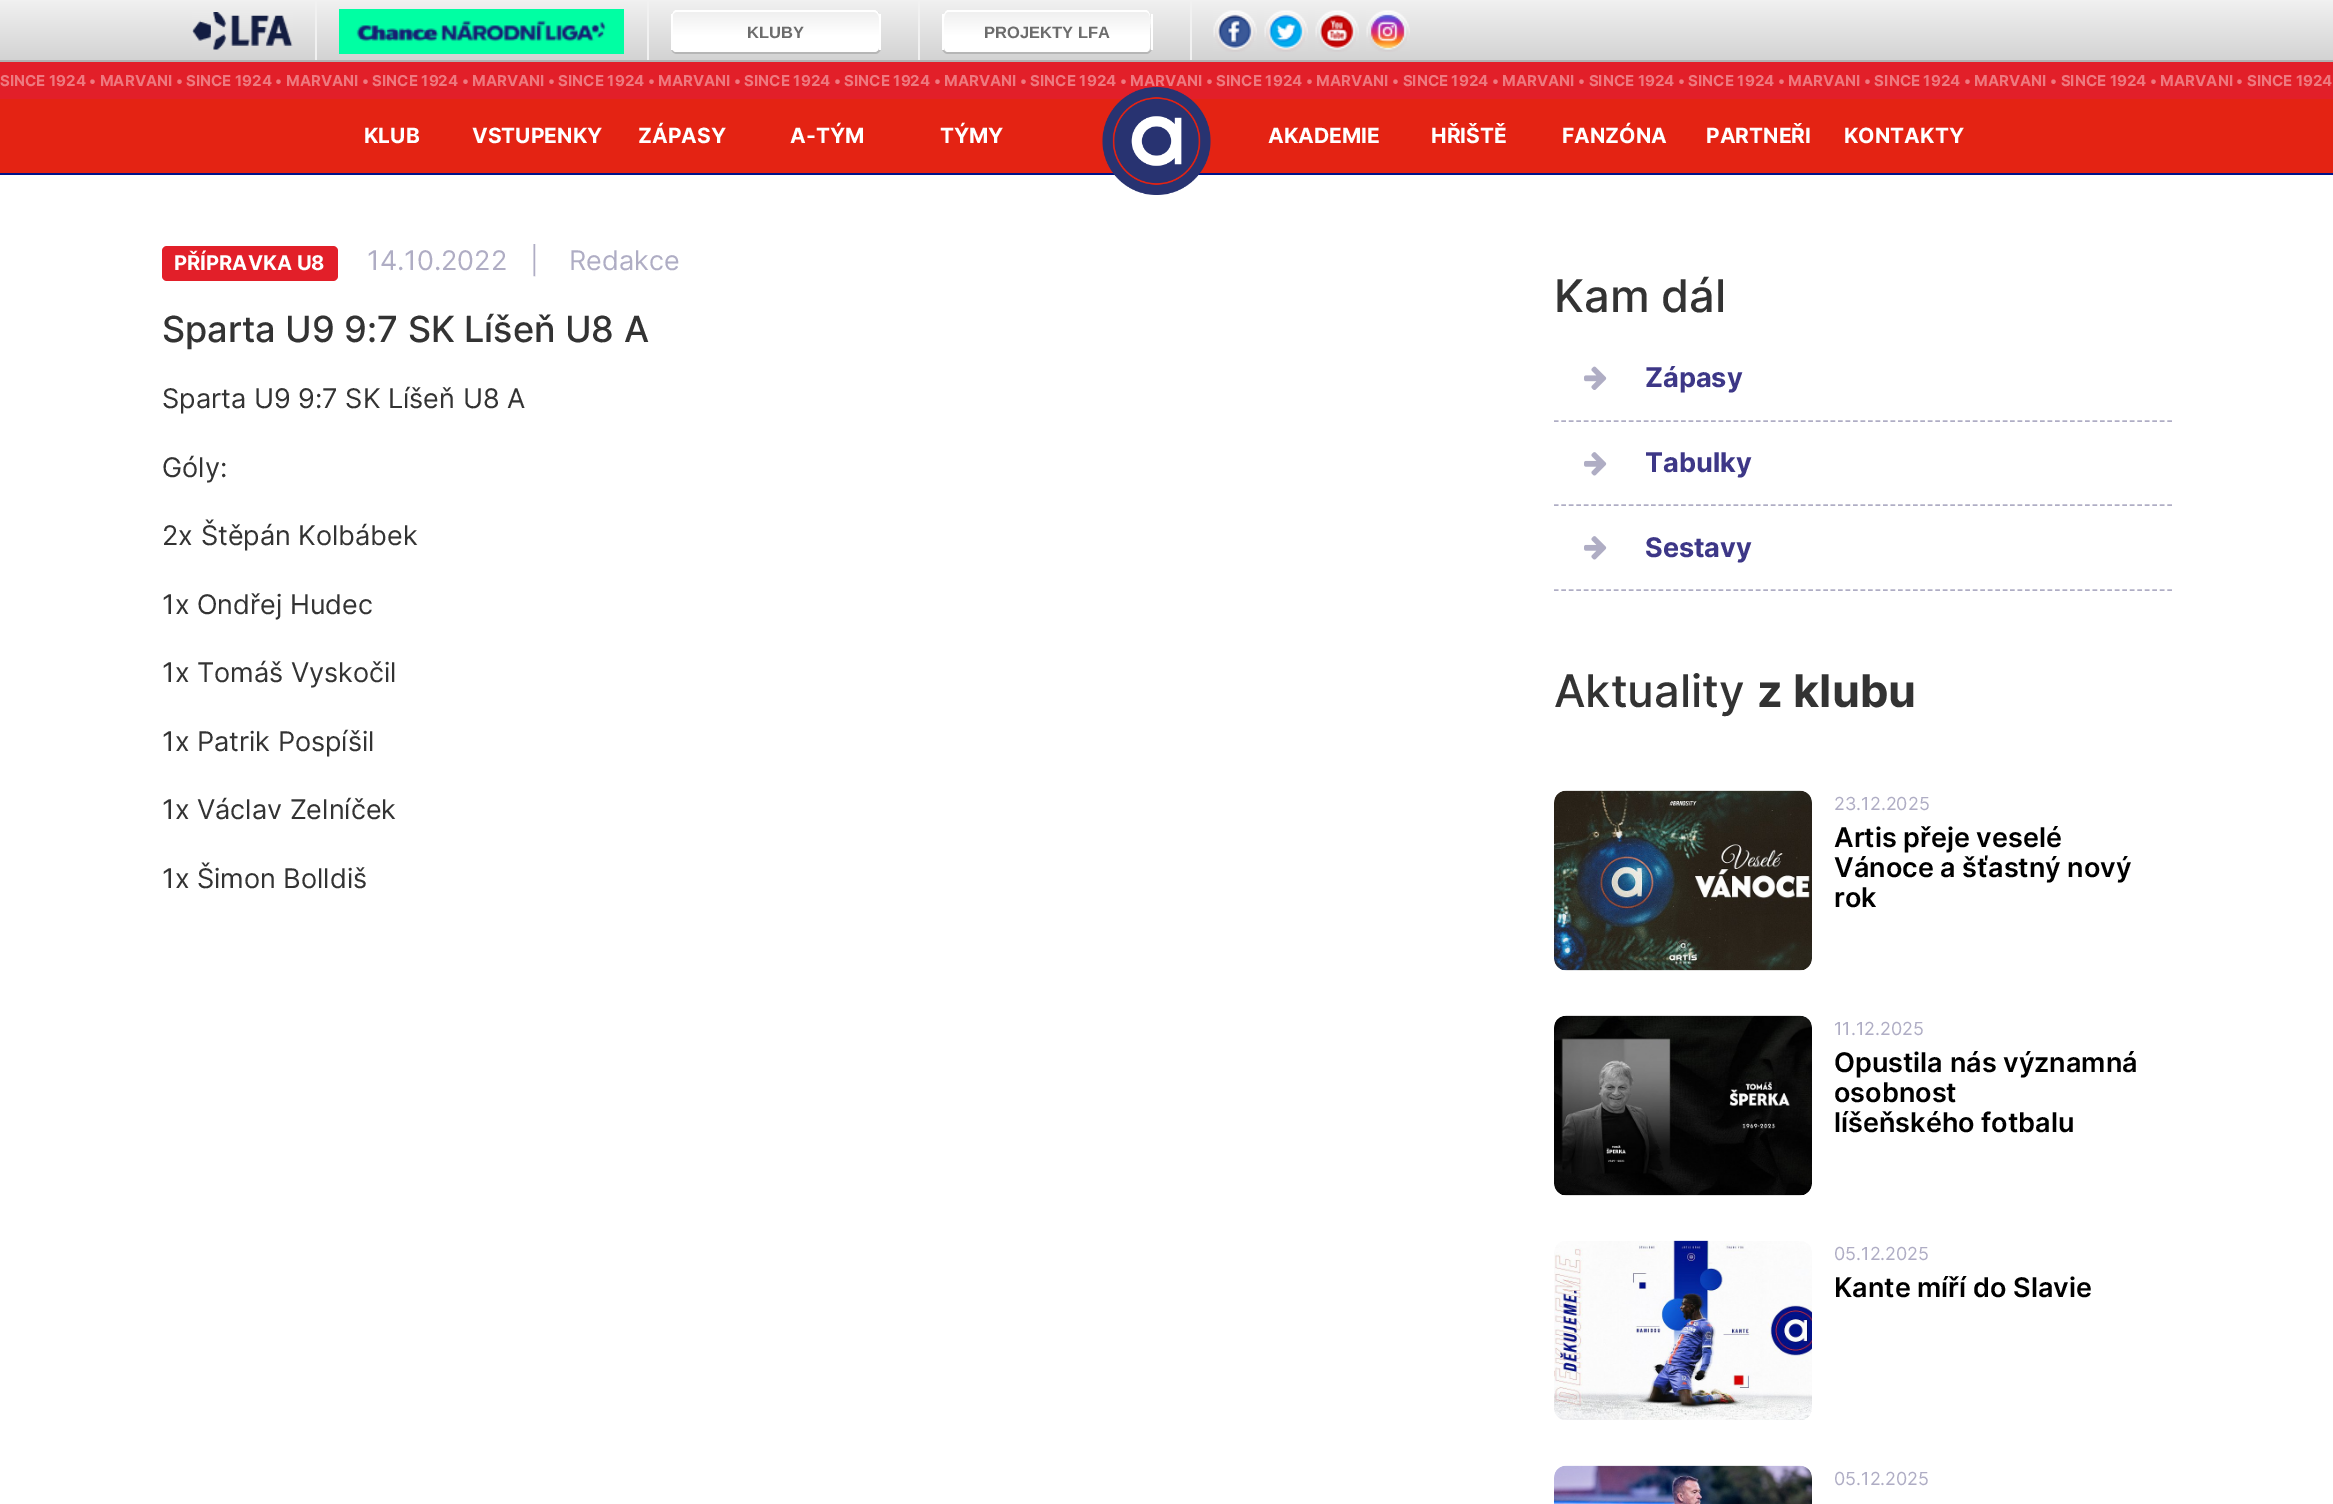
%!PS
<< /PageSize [2333 1504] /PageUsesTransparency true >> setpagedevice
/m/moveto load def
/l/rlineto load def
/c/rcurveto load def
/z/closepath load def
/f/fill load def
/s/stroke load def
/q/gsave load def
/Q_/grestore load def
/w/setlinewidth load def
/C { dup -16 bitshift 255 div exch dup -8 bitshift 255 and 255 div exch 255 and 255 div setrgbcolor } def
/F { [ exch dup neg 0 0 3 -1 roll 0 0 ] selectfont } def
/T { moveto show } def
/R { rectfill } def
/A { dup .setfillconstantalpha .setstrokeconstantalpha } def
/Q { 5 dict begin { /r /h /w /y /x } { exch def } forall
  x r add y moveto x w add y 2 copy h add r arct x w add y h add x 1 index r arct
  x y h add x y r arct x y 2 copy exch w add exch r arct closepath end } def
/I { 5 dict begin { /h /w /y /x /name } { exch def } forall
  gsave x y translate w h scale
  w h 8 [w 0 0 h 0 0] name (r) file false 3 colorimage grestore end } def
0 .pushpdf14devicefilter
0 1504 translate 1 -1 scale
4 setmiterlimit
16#FFFFFF C
0 0 2333 1504 R
16#B1B1B1 C
0 60 2333 2 R
q 0 0 m 2333 0 l 0 60 l -2333 0 l z clip newpath
<< /ShadingType 2 /ColorSpace /DeviceRGB /Coords [1167 60 1167 0] /Extend [true true] /Function << /FunctionType 2 /Domain [0 1] /C0 [.827 .827 .827] /C1 [.945 .945 .945] /N 1 >> >> shfill Q_
(1.rgb) 192 12 101 38 I
16#F1F1F1 C
315 0 2 60 R
(2.rgb) 339 9 285 45 I
647 0 2 60 R
0.15 A
16#000000 C
671 49 m 1 3 3 5 6 5 c 198 0 l 3 0 6 -3 6 -6 c 0 -30 l -1 -3 l 0 31 l 0 4 -2 6 -6 6 c -198 0 l -2 0 -4 -1 -5 -3 c z f
1 A
16#FFFFFF C
676 10 m 198 0 l 3 0 5 3 5 6 c 0 30 l 0 4 -2 6 -5 6 c -198 0 l -2 0 -4 -2 -4 -6 c 0 -30 l 0 -3 2 -6 4 -6 c z f
0.07 A
q 676 10 m 198 0 l 3 0 5 3 5 6 c 0 30 l 0 4 -2 6 -5 6 c -198 0 l -2 0 -4 -2 -4 -6 c 0 -30 l 0 -3 2 -6 4 -6 c z clip newpath
<< /ShadingType 2 /ColorSpace /DeviceRGB /Coords [776 10 776 53] /Extend [true true] /Function << /FunctionType 3 /Domain [0 1] /Functions [<< /FunctionType 2 /Domain [0 1] /C0 [0 0 0] /C1 [1 1 1] /N 1 >> << /FunctionType 2 /Domain [0 1] /C0 [1 1 1] /C1 [1 1 1] /N 1 >>] /Bounds [.6] /Encode [0 1 0 1] >> >> shfill Q_
1 A
676 12 m 198 0 l 3 0 5 3 5 6 c 0 -2 l 0 -3 -2 -6 -5 -6 c -198 0 l -2 0 -4 3 -4 6 c 0 2 l 0 -3 2 -6 4 -6 c z f
879 14 2 36 R
671 14 2 36 R
/LiberationSans-Bold 16.5 F
16#6C6C6C C
(KLUBY) 747 38 T
16#F1F1F1 C
918 0 2 60 R
16#B6B6B6 C
942 46 m 0 2 l 0 3 3 6 6 6 c 198 0 l 3 0 6 -3 6 -6 c 0 -2 l 0 4 -3 6 -6 6 c -198 0 l -3 0 -6 -2 -6 -6 c z f
16#FFFFFF C
948 10 m 198 0 l 2 0 4 3 4 6 c 0 30 l 0 4 -2 6 -4 6 c -198 0 l -2 0 -4 -2 -4 -6 c 0 -30 l 0 -3 2 -6 4 -6 c z f
0.07 A
q 948 10 m 198 0 l 2 0 4 3 4 6 c 0 30 l 0 4 -2 6 -4 6 c -198 0 l -2 0 -4 -2 -4 -6 c 0 -30 l 0 -3 2 -6 4 -6 c z clip newpath
<< /ShadingType 2 /ColorSpace /DeviceRGB /Coords [1047 10 1047 53] /Extend [true true] /Function << /FunctionType 3 /Domain [0 1] /Functions [<< /FunctionType 2 /Domain [0 1] /C0 [0 0 0] /C1 [1 1 1] /N 1 >> << /FunctionType 2 /Domain [0 1] /C0 [1 1 1] /C1 [1 1 1] /N 1 >>] /Bounds [.6] /Encode [0 1 0 1] >> >> shfill Q_
1 A
948 12 m 198 0 l 6 0 4 14 4 16 c 0 22 l 0 -4 l 0 -30 l 0 -3 -2 -6 -4 -6 c -198 0 l -2 0 -4 3 -4 6 c 0 30 l 0 4 l 0 -17 l 0 -3 -2 -21 4 -21 c z f
1151 14 2 36 R
942 14 2 36 R
16#6C6C6C C
(PROJEKTY LFA) 984 38 T
16#F1F1F1 C
1190 0 2 60 R
(3.rgb) 1213 10 44 42 I
(4.rgb) 1264 10 44 42 I
(5.rgb) 1315 10 44 42 I
(6.rgb) 1366 10 44 42 I
16#E21F29 C
0 62 2333 37 R
/Inter-Bold 15 F
16#EE797F C
(SINCE 1924 • MARVANI • SINCE 1924 • MARVANI • SINCE 1924 • MARVANI • SINCE 1924 • MARVANI • SINCE 1924 • SINCE 1924 • MARVANI • SINCE 1924 • MARVANI • SINCE 1924 • MARVANI • SINCE 1924 • MARVANI • SINCE 1924 • SINCE 1924 • MARVANI • SINCE 1924 • MARVANI • SINCE 1924 • MARVANI • SINCE 1924) 0 86 T
16#E42313 C
0 99 2333 74 R
16#001489 C
0 173 2333 2 R
(7.rgb) 1102 87 109 108 I
/Inter-Bold 21 F
16#FFFFFF C
(KLUB) 364 143 T
(VSTUPENKY) 472 143 T
(ZÁPASY) 638 143 T
(A-TÝM) 790 143 T
(TÝMY) 940 143 T
(AKADEMIE) 1268 143 T
(HŘIŠTĚ) 1431 143 T
(FANZÓNA) 1562 143 T
(PARTNEŘI) 1706 143 T
(KONTAKTY) 1844 143 T
16#E21F29 C
162 246 176 35 5 Q f
/Inter-Bold 20.25 F
16#FFFFFF C
(PŘÍPRAVKA U8) 174 270 T
/Inter-Regular 27 F
16#AFADC4 C
(14.10.2022   |) 367 270 T
(Redakce) 569 270 T
/Inter-Medium 36 F
16#333333 C
(Sparta U9 9:7 SK Líšeň U8 A) 162 342 T
/Inter-Regular 27 F
(Sparta U9 9:7 SK Líšeň U8 A) 162 408 T
(Góly:) 162 477 T
(2x Štěpán Kolbábek) 162 545 T
(1x Ondřej Hudec) 162 614 T
(1x Tomáš Vyskočil) 162 682 T
(1x Patrik Pospíšil) 162 751 T
(1x Václav Zelníček) 162 819 T
(1x Šimon Bolldiš) 162 888 T
/Inter-Medium 45 F
(Kam dál) 1554 312 T
16#AFADC4 C
1.5 w
[4.5 2.98] 0 setdash
1554 421 m 618 0 l s
(8.rgb) 1584 366 23 24 I
/Inter-Bold 27 F
16#3D3787 C
(Zápasy) 1645 387 T
16#AFADC4 C
1554 505 m 618 0 l s
(9.rgb) 1584 452 23 24 I
16#3D3787 C
(Tabulky) 1645 472 T
16#AFADC4 C
1554 590 m 618 0 l s
(9.rgb) 1584 536 23 24 I
16#3D3787 C
(Sestavy) 1645 557 T
/Inter-Medium 45 F
16#333333 C
(Aktuality) 1554 707 T
/Inter-Bold 45 F
(z klubu) 1757 707 T
(10.rgb) 1554 790 258 181 I
/Inter-Regular 18 F
16#AFADC4 C
(23.12.2025) 1834 810 T
/Inter-SemiBold 27 F
16#000000 C
(Artis přeje veselé) 1834 847 T
(Vánoce a šťastný nový) 1834 877 T
(rok) 1834 907 T
(11.rgb) 1554 1015 258 181 I
/Inter-Regular 18 F
16#AFADC4 C
(11.12.2025) 1834 1035 T
/Inter-SemiBold 27 F
16#000000 C
(Opustila nás významná) 1834 1072 T
(osobnost) 1834 1102 T
(líšeňského fotbalu) 1834 1132 T
(12.rgb) 1554 1240 258 180 I
/Inter-Regular 18 F
16#AFADC4 C
(05.12.2025) 1834 1260 T
/Inter-SemiBold 27 F
16#000000 C
(Kante míří do Slavie) 1834 1297 T
(13.rgb) 1554 1465 258 39 I
/Inter-Regular 18 F
16#AFADC4 C
(05.12.2025) 1834 1485 T
.poppdf14devicefilter showpage
